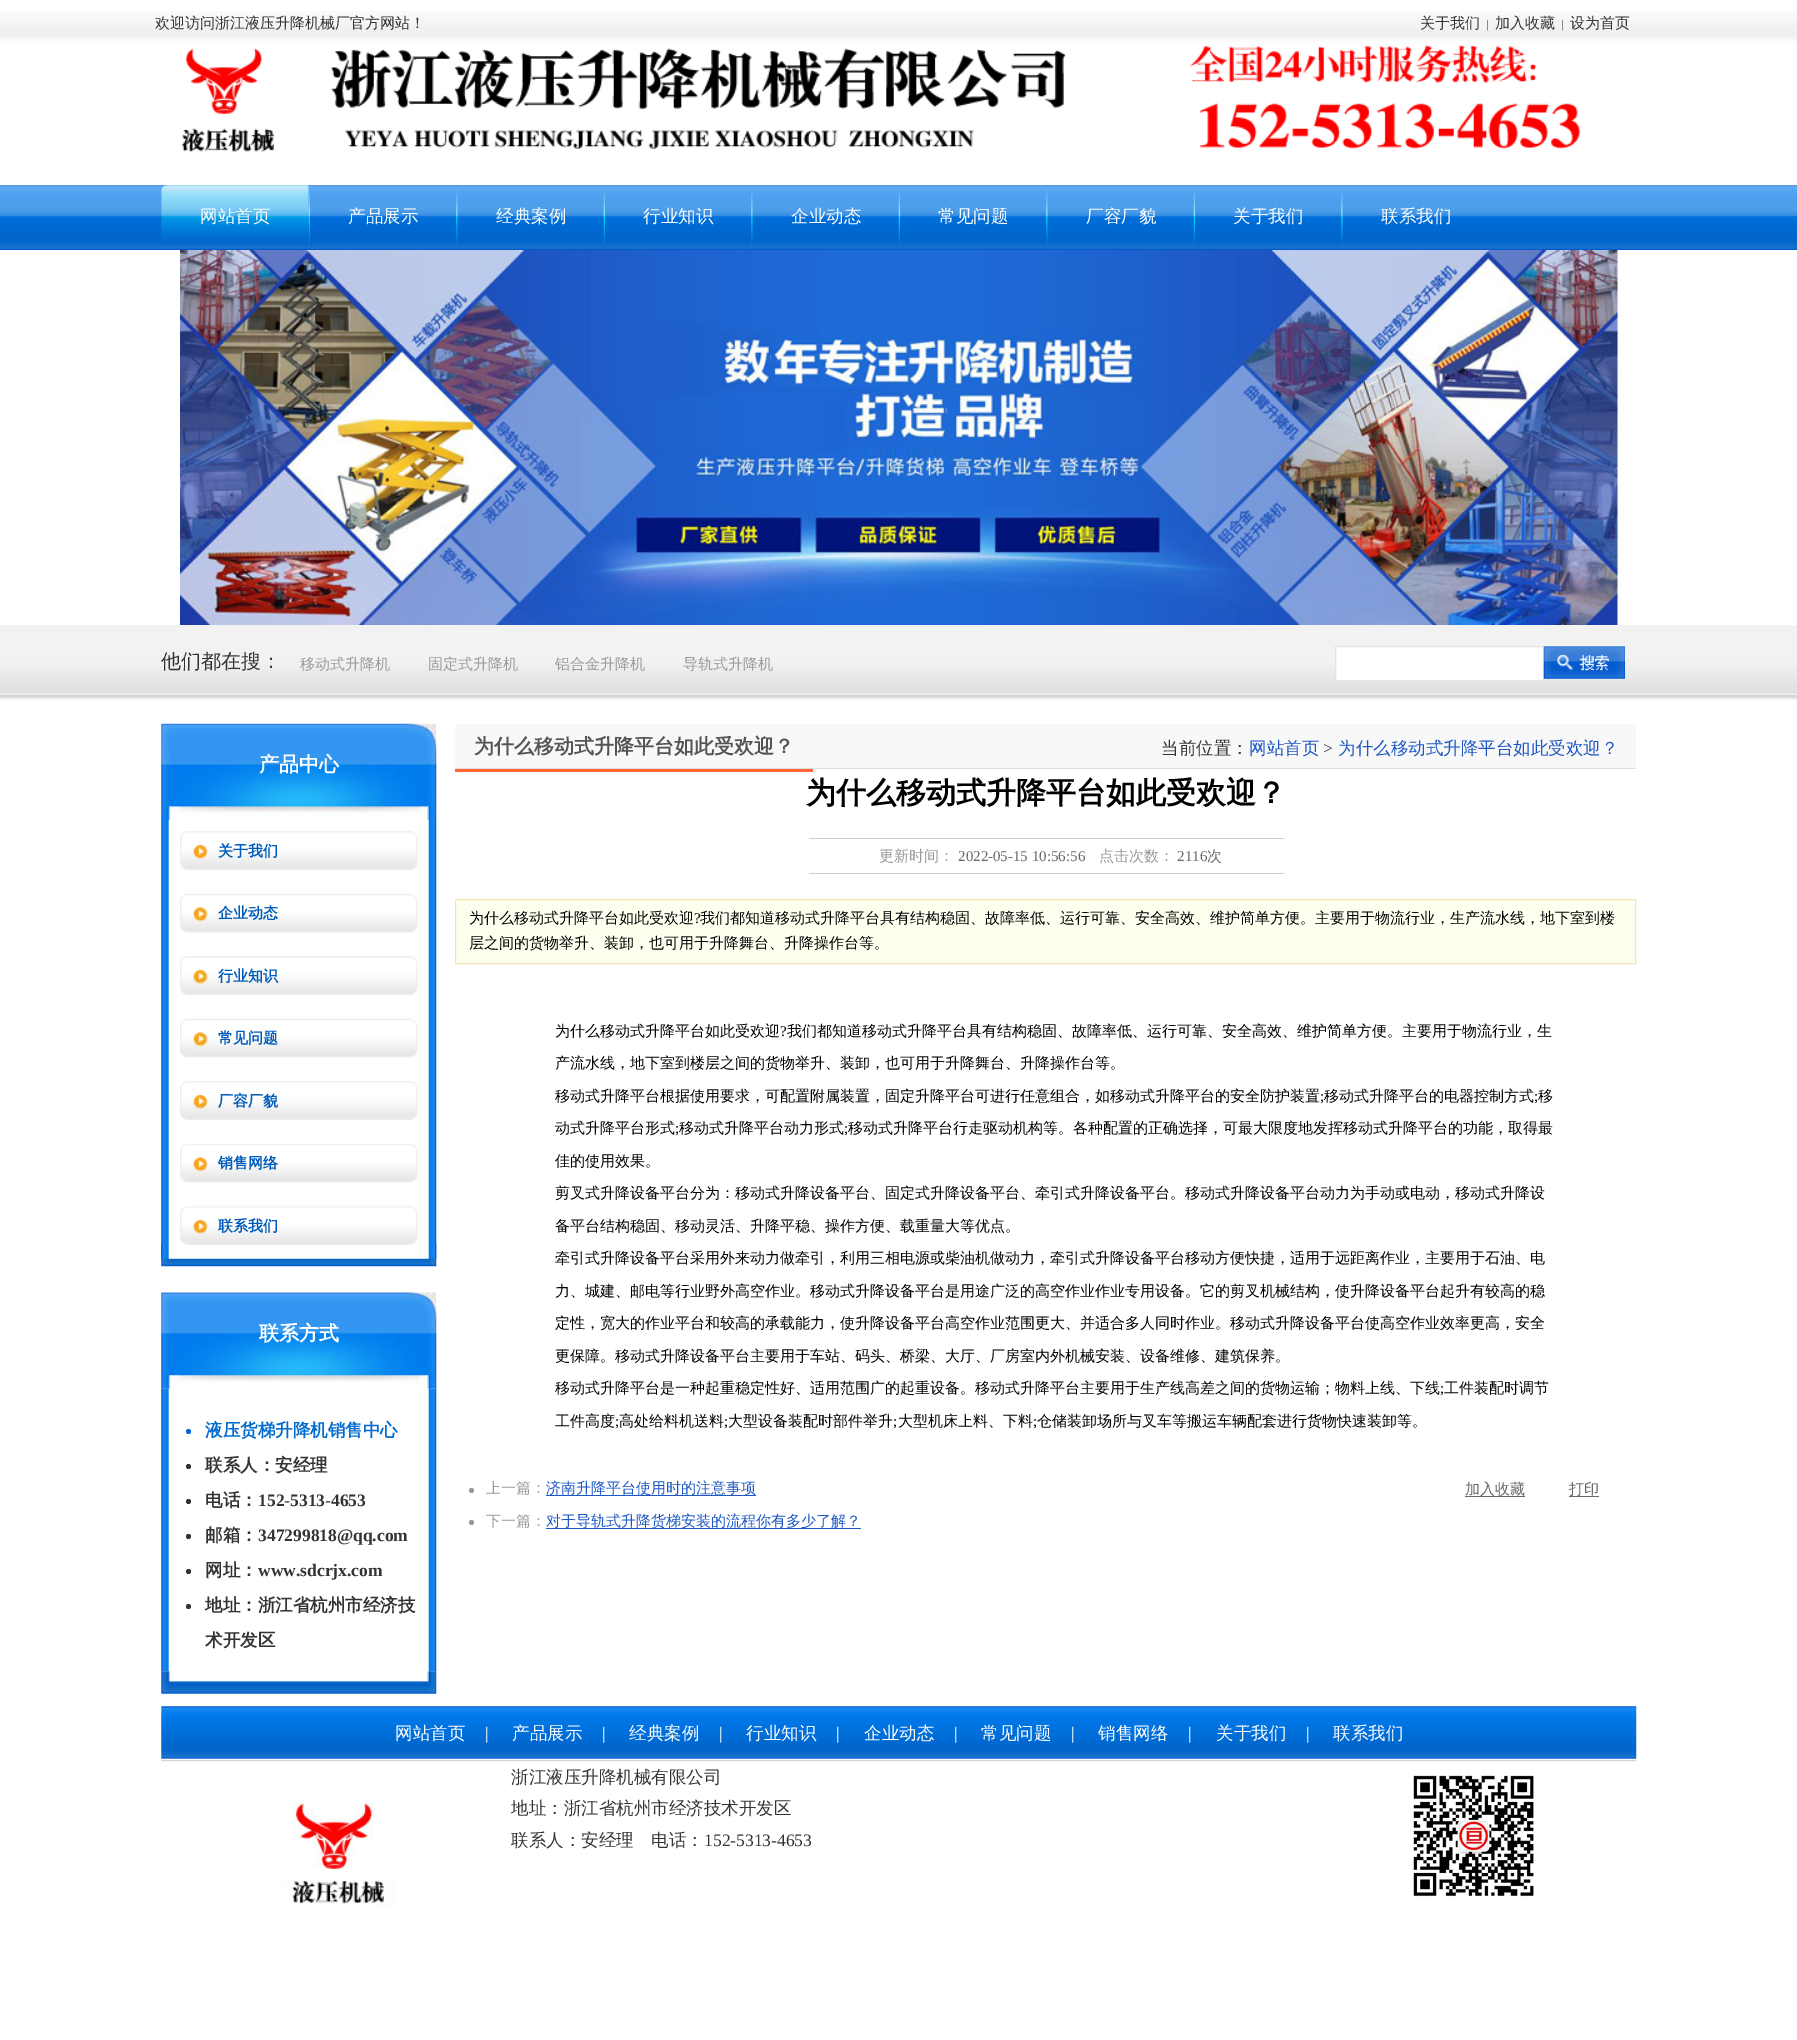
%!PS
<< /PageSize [1797 2040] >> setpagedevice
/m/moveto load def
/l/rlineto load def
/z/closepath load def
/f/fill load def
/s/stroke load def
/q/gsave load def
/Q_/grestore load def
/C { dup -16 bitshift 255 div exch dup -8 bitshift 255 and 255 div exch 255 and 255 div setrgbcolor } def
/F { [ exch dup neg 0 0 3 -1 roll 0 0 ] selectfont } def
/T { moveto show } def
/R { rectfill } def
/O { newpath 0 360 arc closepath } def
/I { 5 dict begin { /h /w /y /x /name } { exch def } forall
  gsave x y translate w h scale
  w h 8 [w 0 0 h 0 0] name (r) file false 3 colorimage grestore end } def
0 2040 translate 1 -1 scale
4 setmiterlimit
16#FFFFFF C
0 0 1797 2040 R
(1.rgb) 0 11 1797 174 I
/WenQuanYiZenHei-Medium 15 F
16#333333 C
(欢迎访问浙江液压升降机械厂官方网站！) 155 28 T
(关于我们) 1420 28 T
/LiberationSerif-Regular 12 F
(|) 1486 28 T
/WenQuanYiZenHei-Medium 15 F
(加入收藏) 1495 28 T
/LiberationSerif-Regular 12 F
(|) 1561 28 T
/WenQuanYiZenHei-Medium 15 F
(设为首页) 1570 28 T
(2.rgb) 182 45 1399 107 I
(3.rgb) 0 185 1797 65 I
(4.rgb) 161 185 148 56 I
/WenQuanYiZenHei-Medium 17.5 F
16#FFFFFF C
(网站首页) 200 222 T
(5.rgb) 308 185 2 60 I
(产品展示) 348 222 T
(6.rgb) 456 185 2 60 I
(经典案例) 496 222 T
(7.rgb) 603 185 2 60 I
(行业知识) 643 222 T
(6.rgb) 751 185 2 60 I
(企业动态) 791 222 T
(7.rgb) 898 185 2 60 I
(常见问题) 938 222 T
(6.rgb) 1046 185 2 60 I
(厂容厂貌) 1086 222 T
(7.rgb) 1193 185 2 60 I
(关于我们) 1233 222 T
(6.rgb) 1341 185 2 60 I
(联系我们) 1381 222 T
(8.rgb) 180 250 1438 375 I
(9.rgb) 0 625 1797 76 I
/WenQuanYiZenHei-Medium 20 F
16#333333 C
(他们都在搜：) 161 668 T
/WenQuanYiZenHei-Medium 15 F
16#999999 C
(移动式升降机) 300 669 T
(固定式升降机) 428 669 T
(铝合金升降机) 555 669 T
(导轨式升降机) 683 669 T
16#FFFFFF C
1335.5 646.5 m 208 0 l 0 34 l -208 0 l z q f Q_
16#E4E4E4 C
s
(10.rgb) 1543 646 82 33 I
(11.rgb) 161 723 276 97 I
/WenQuanYiZenHei-Bold 20 F
16#FFFFFF C
(产品中心) 259 771 T
(12.rgb) 161 1243 276 24 I
(13.rgb) 161 820 276 439 I
(14.rgb) 180 831 238 39 I
/WenQuanYiZenHei-Bold 15 F
16#005CBB C
(关于我们) 218 856 T
(15.rgb) 180 893 238 40 I
(企业动态) 218 918 T
(14.rgb) 180 956 238 39 I
(行业知识) 218 981 T
(15.rgb) 180 1018 238 40 I
(常见问题) 218 1043 T
(14.rgb) 180 1081 238 39 I
(厂容厂貌) 218 1106 T
(16.rgb) 180 1143 238 40 I
(销售网络) 218 1168 T
(14.rgb) 180 1206 238 39 I
(联系我们) 218 1231 T
(18.rgb) 161 1388 276 284 I
(17.rgb) 161 1292 276 97 I
/WenQuanYiZenHei-Bold 20 F
16#FFFFFF C
(联系方式) 259 1340 T
16#006CD0 C
188.5 1431.5 2.5 O f
/WenQuanYiZenHei-Bold 17.5 F
(液压货梯升降机销售中心) 205 1436 T
16#333333 C
188.5 1466.5 2.5 O f
(联系人：安经理) 205 1471 T
188.5 1501.5 2.5 O f
(电话：) 205 1506 T
/LiberationSerif-Bold 17.5 F
(152-5313-4653) 258 1506 T
188.5 1536.5 2.5 O f
/WenQuanYiZenHei-Bold 17.5 F
(邮箱：) 205 1541 T
/LiberationSerif-Bold 17.5 F
(347299818@qq.com) 258 1541 T
188.5 1571.5 2.5 O f
/WenQuanYiZenHei-Bold 17.5 F
(网址：) 205 1576 T
/LiberationSerif-Bold 17.5 F
(www.sdcrjx.com) 258 1576 T
188.5 1606.5 2.5 O f
/WenQuanYiZenHei-Bold 17.5 F
(地址：浙江省杭州市经济技) 205 1611 T
(术开发区) 205 1646 T
(19.rgb) 161 1671 276 23 I
16#F8F8F8 C
455 724 1181 44 R
16#DDDDDD C
455 768 1181 1 R
16#FF6633 C
455 769 358 3 R
/WenQuanYiZenHei-Bold 20 F
16#555555 C
(为什么移动式升降平台如此受欢迎？) 474 753 T
/WenQuanYiZenHei-Medium 17.5 F
16#333333 C
(当前位置：) 1161 754 T
16#1C57C4 C
(网站首页) 1249 754 T
/LiberationSerif-Regular 17.5 F
16#333333 C
(>) 1323 754 T
/WenQuanYiZenHei-Medium 17.5 F
16#1C57C4 C
(为什么移动式升降平台如此受欢迎？) 1338 754 T
/WenQuanYiZenHei-Bold 30 F
16#000000 C
(为什么移动式升降平台如此受欢迎？) 806 803 T
16#CCCCCC C
809 838 475 1 R
809 873 475 1 R
/WenQuanYiZenHei-Medium 15 F
16#999999 C
(更新时间：) 879 861 T
/LiberationSerif-Regular 15 F
16#666666 C
(2022-05-15 10:56:56) 958 861 T
/WenQuanYiZenHei-Medium 15 F
16#999999 C
(点击次数：) 1099 861 T
/LiberationSerif-Regular 15 F
16#666666 C
(2116) 1177 861 T
/WenQuanYiZenHei-Medium 15 F
(次) 1207 861 T
16#FFFFF0 C
455.5 899.5 m 1180 0 l 0 64 l -1180 0 l z q f Q_
16#F4E4B4 C
s
16#000000 C
(为什么移动式升降平台如此受欢迎) 469 923 T
/LiberationSerif-Regular 15 F
(?) 694 923 T
/WenQuanYiZenHei-Medium 15 F
(我们都知道移动式升降平台具有结构稳固、故障率低、运行可靠、安全高效、维护简单方便。主要用于物流行业，生产流水线，地下室到楼) 700 923 T
(层之间的货物举升、装卸，也可用于升降舞台、升降操作台等。) 469 948 T
(为什么移动式升降平台如此受欢迎) 555 1036 T
/LiberationSerif-Regular 15 F
(?) 780 1036 T
/WenQuanYiZenHei-Medium 15 F
(我们都知道移动式升降平台具有结构稳固、故障率低、运行可靠、安全高效、维护简单方便。主要用于物流行业，生) 787 1036 T
(产流水线，地下室到楼层之间的货物举升、装卸，也可用于升降舞台、升降操作台等。) 555 1068 T
(移动式升降平台根据使用要求，可配置附属装置，固定升降平台可进行任意组合，如移动式升降平台的安全防护装置) 555 1101 T
/LiberationSerif-Regular 15 F
(;) 1320 1101 T
/WenQuanYiZenHei-Medium 15 F
(移动式升降平台的电器控制方式) 1324 1101 T
/LiberationSerif-Regular 15 F
(;) 1534 1101 T
/WenQuanYiZenHei-Medium 15 F
(移) 1538 1101 T
(动式升降平台形式) 555 1133 T
/LiberationSerif-Regular 15 F
(;) 675 1133 T
/WenQuanYiZenHei-Medium 15 F
(移动式升降平台动力形式) 679 1133 T
/LiberationSerif-Regular 15 F
(;) 844 1133 T
/WenQuanYiZenHei-Medium 15 F
(移动式升降平台行走驱动机构等。各种配置的正确选择，可最大限度地发挥移动式升降平台的功能，取得最) 848 1133 T
(佳的使用效果。) 555 1166 T
(剪叉式升降设备平台分为：移动式升降设备平台、固定式升降设备平台、牵引式升降设备平台。移动式升降设备平台动力为手动或电动，移动式升降设) 555 1198 T
(备平台结构稳固、移动灵活、升降平稳、操作方便、载重量大等优点。) 555 1231 T
(牵引式升降设备平台采用外来动力做牵引，利用三相电源或柴油机做动力，牵引式升降设备平台移动方便快捷，适用于远距离作业，主要用于石油、电) 555 1263 T
(力、城建、邮电等行业野外高空作业。移动式升降设备平台是用途广泛的高空作业作业专用设备。它的剪叉机械结构，使升降设备平台起升有较高的稳) 555 1296 T
(定性，宽大的作业平台和较高的承载能力，使升降设备平台高空作业范围更大、并适合多人同时作业。移动式升降设备平台使高空作业效率更高，安全) 555 1328 T
(更保障。移动式升降设备平台主要用于车站、码头、桥梁、大厅、厂房室内外机械安装、设备维修、建筑保养。) 555 1361 T
(移动式升降平台是一种起重稳定性好、适用范围广的起重设备。移动式升降平台主要用于生产线高差之间的货物运输；物料上线、下线) 555 1393 T
/LiberationSerif-Regular 15 F
(;) 1440 1393 T
/WenQuanYiZenHei-Medium 15 F
(工件装配时调节) 1444 1393 T
(工件高度) 555 1426 T
/LiberationSerif-Regular 15 F
(;) 615 1426 T
/WenQuanYiZenHei-Medium 15 F
(高处给料机送料) 619 1426 T
/LiberationSerif-Regular 15 F
(;) 724 1426 T
/WenQuanYiZenHei-Medium 15 F
(大型设备装配时部件举升) 728 1426 T
/LiberationSerif-Regular 15 F
(;) 893 1426 T
/WenQuanYiZenHei-Medium 15 F
(大型机床上料、下料) 898 1426 T
/LiberationSerif-Regular 15 F
(;) 1033 1426 T
/WenQuanYiZenHei-Medium 15 F
(仓储装卸场所与叉车等搬运车辆配套进行货物快速装卸等。) 1037 1426 T
16#999999 C
471.5 1490.5 2.5 O f
(上一篇：) 486 1493 T
16#1C57C4 C
546 1495 210 1 R
(济南升降平台使用时的注意事项) 546 1493 T
16#999999 C
471.5 1522.5 2.5 O f
(下一篇：) 486 1526 T
16#1C57C4 C
546 1528 315 1 R
(对于导轨式升降货梯安装的流程你有多少了解？) 546 1526 T
16#666666 C
1465 1496 60 1 R
(加入收藏) 1465 1494 T
1569 1496 30 1 R
(打印) 1569 1494 T
(20.rgb) 161 1706 1476 56 I
/WenQuanYiZenHei-Medium 17.5 F
16#FFFFFF C
(网站首页) 395 1739 T
/LiberationSerif-Regular 17.5 F
(|) 485 1739 T
/WenQuanYiZenHei-Medium 17.5 F
(产品展示) 512 1739 T
/LiberationSerif-Regular 17.5 F
(|) 602 1739 T
/WenQuanYiZenHei-Medium 17.5 F
(经典案例) 629 1739 T
/LiberationSerif-Regular 17.5 F
(|) 719 1739 T
/WenQuanYiZenHei-Medium 17.5 F
(行业知识) 746 1739 T
/LiberationSerif-Regular 17.5 F
(|) 836 1739 T
/WenQuanYiZenHei-Medium 17.5 F
(企业动态) 864 1739 T
/LiberationSerif-Regular 17.5 F
(|) 954 1739 T
/WenQuanYiZenHei-Medium 17.5 F
(常见问题) 981 1739 T
/LiberationSerif-Regular 17.5 F
(|) 1071 1739 T
/WenQuanYiZenHei-Medium 17.5 F
(销售网络) 1098 1739 T
/LiberationSerif-Regular 17.5 F
(|) 1188 1739 T
/WenQuanYiZenHei-Medium 17.5 F
(关于我们) 1216 1739 T
/LiberationSerif-Regular 17.5 F
(|) 1306 1739 T
/WenQuanYiZenHei-Medium 17.5 F
(联系我们) 1333 1739 T
(21.rgb) 285 1799 111 107 I
16#333333 C
(浙江液压升降机械有限公司) 511 1783 T
(地址：浙江省杭州市经济技术开发区) 511 1814 T
(联系人：安经理) 511 1846 T
(电话：) 651 1846 T
/LiberationSerif-Regular 17.5 F
(152-5313-4653) 704 1846 T
(22.rgb) 1413 1775 121 122 I
showpage
